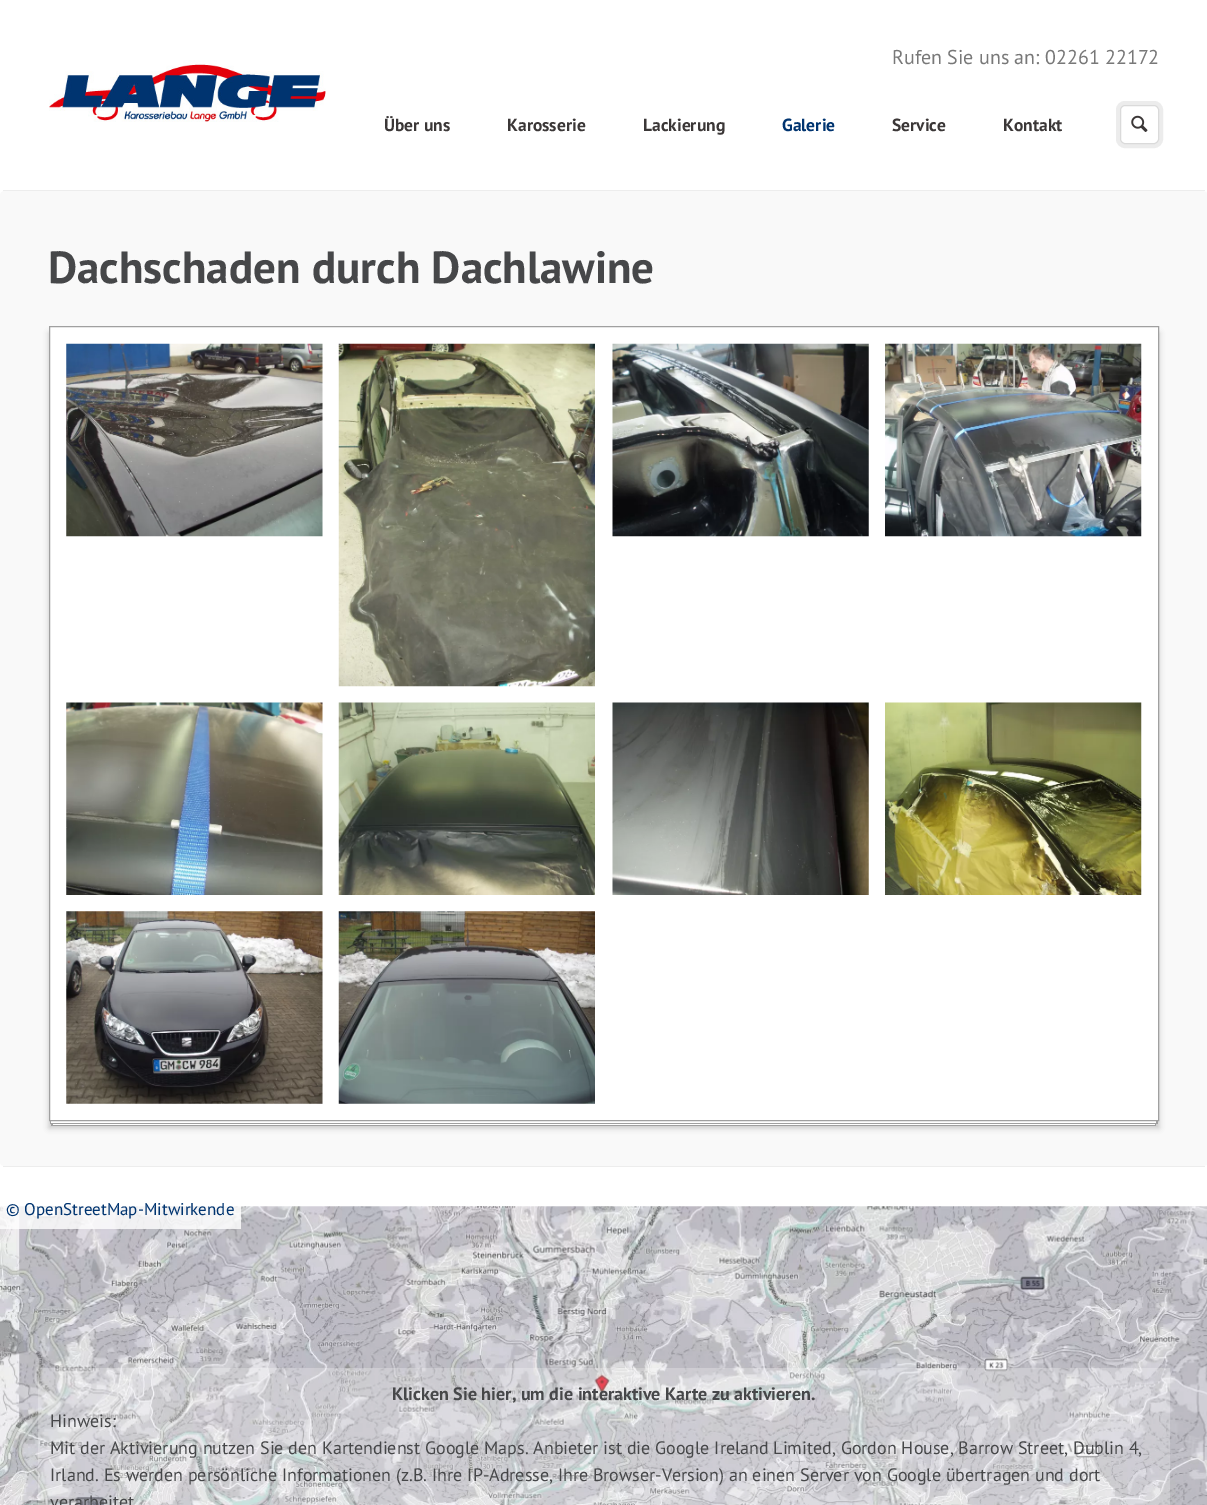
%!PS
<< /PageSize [1207 1505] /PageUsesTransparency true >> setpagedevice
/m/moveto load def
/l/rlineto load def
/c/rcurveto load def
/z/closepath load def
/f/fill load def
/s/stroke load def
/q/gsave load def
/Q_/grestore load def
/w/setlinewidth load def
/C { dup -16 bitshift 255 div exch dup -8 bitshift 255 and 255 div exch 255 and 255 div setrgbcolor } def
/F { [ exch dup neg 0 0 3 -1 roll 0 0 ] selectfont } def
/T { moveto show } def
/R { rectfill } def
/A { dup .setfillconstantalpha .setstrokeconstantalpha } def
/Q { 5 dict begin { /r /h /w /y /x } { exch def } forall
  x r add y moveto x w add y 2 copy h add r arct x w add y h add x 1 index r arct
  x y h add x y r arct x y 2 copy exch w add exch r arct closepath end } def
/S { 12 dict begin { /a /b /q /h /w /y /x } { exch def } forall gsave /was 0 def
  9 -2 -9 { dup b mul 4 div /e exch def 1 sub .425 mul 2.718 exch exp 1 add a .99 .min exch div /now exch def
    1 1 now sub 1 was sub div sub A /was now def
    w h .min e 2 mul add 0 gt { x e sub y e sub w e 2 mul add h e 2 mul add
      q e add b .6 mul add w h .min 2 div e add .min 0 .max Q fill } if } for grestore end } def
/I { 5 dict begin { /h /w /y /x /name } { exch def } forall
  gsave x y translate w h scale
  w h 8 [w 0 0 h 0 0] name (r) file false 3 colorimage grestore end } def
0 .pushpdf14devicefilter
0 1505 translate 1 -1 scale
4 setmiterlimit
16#FFFFFF C
0 0 1207 1505 R
/PTSans-Regular 20 F
16#787878 C
(Rufen Sie uns an: 02261 22172) 892 64 T
(1.rgb) 49 60 277 62 I
/PTSans-Bold 17.5 F
16#3B3737 C
(Über uns) 384 131 T
(Karosserie) 507 131 T
(Lackierung) 643 131 T
16#003470 C
(Galerie) 782 131 T
16#3B3737 C
(Service) 892 131 T
(Kontakt) 1003 131 T
16#ECECEC C
4 w
1118 103 43 43 7 Q s
16#FFFFFF C
1120.5 105.5 38 38 4.5 Q q f Q_
16#DADADA C
1 w
s
(2.rgb) 1131 115 17 17 I
16#F9F9F9 C
5 191 m 1197 0 l 3 0 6 2 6 4 c 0 967 l 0 3 -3 4 -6 4 c -1197 0 l -3 0 -5 -1 -5 -4 c 0 -967 l 0 -2 2 -4 5 -4 c z f
16#EDEDED C
3 190 1202 1 R
3 1166 1202 1 R
/PTSans-Bold 45 F
16#464749 C
(Dachschaden durch Dachlawine) 48 283 T
16#000000 C
49 333 1110 795 0 3 .2 S
16#A0A0A0 C
51 1124 1105 2 R
16#FFFFFF C
53 1124 1102 1 R
16#A0A0A0 C
50 1121 1108 3 R
16#FFFFFF C
51 1121 1105 2 R
49.5 326.5 m 1109 0 l 0 794 l -1109 0 l z q f Q_
16#A0A0A0 C
s
(3.rgb) 66 343 257 194 I
(4.rgb) 338 343 257 344 I
(5.rgb) 612 343 257 194 I
(6.rgb) 885 343 257 194 I
(7.rgb) 66 702 257 193 I
(8.rgb) 338 702 257 193 I
(9.rgb) 612 702 257 193 I
(10.rgb) 885 702 257 193 I
(11.rgb) 66 911 257 193 I
(12.rgb) 338 911 257 193 I
(13.rgb) 0 1206 1207 299 I
0.8 A
16#FFFFFF C
0 1206 241 23 R
/PTSans-Regular 17 F
1 A
16#003470 C
(© OpenStreetMap-Mitwirkende) 6 1215 T
0.25 A
16#FFFFFF C
38 1368 1132 137 R
/PTSans-Bold 18 F
1 A
16#464749 C
(Klicken Sie hier, um die interaktive Karte zu aktivieren.) 392 1400 T
/PTSans-Regular 18 F
(Hinweis:) 50 1427 T
(Mit der Aktivierung nutzen Sie den Kartendienst Google Maps. Anbieter ist die Google Ireland Limited, Gordon House, Barrow Street, Dublin 4,) 50 1454 T
(Irland. Es werden persönliche Informationen \(z.B. Ihre IP-Adresse, Ihre Browser-Version\) an einen Server von Google übertragen und dort) 50 1481 T
(verarbeitet) 50 1508 T
.poppdf14devicefilter showpage
